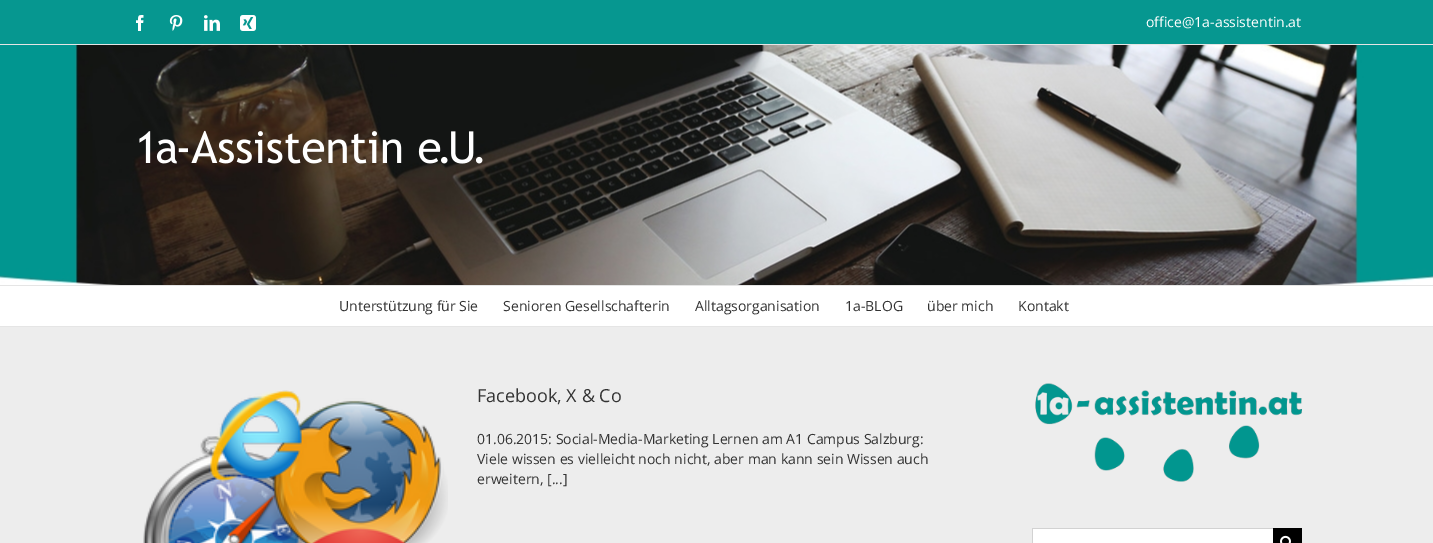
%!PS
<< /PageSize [1433 543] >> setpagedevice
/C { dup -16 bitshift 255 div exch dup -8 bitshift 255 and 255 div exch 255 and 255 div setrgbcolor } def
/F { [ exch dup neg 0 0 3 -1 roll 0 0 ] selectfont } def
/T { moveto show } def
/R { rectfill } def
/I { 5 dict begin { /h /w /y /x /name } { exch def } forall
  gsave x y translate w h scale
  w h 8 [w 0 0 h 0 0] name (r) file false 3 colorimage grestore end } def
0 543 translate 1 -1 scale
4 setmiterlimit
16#EDEDED C
0 0 1433 543 R
16#069790 C
0 0 1433 44 R
16#E5E5E5 C
0 44 1433 1 R
(1.rgb) 136 15 8 16 I
(2.rgb) 169 15 14 16 I
(3.rgb) 204 15 16 16 I
(4.rgb) 240 15 16 16 I
/OpenSans-Regular 14 F
16#FFFFFF C
(office@1a-assistentin.at) 1146 27 T
(5.rgb) 0 45 1433 240 I
16#E5E5E5 C
0 285 1433 1 R
(6.rgb) 139 130 344 34 I
16#FFFFFF C
0 286 1433 40 R
16#E5E5E5 C
0 326 1433 1 R
16#333333 C
(Unterstützung für Sie) 339 311 T
(Senioren Gesellschafterin) 503 311 T
(Alltagsorganisation) 695 311 T
(1a-BLOG) 845 311 T
(über mich) 927 311 T
(Kontakt) 1018 311 T
(7.rgb) 143 390 305 153 I
/OpenSans-Regular 18 F
(Facebook, X & Co) 477 402 T
/OpenSans-Regular 14 F
(01.06.2015: Social-Media-Marketing Lernen am A1 Campus Salzburg:) 477 444 T
(Viele wissen es vielleicht noch nicht, aber man kann sein Wissen auch) 477 464 T
(erweitern, [...]) 477 484 T
(8.rgb) 1035 383 267 99 I
16#FFFFFF C
1033 529 240 14 R
16#D2D2D2 C
1032 528 241 1 R
1032 528 1 15 R
16#000000 C
1273 528 29 15 R
(9.rgb) 1280 535 11 8 I
showpage
